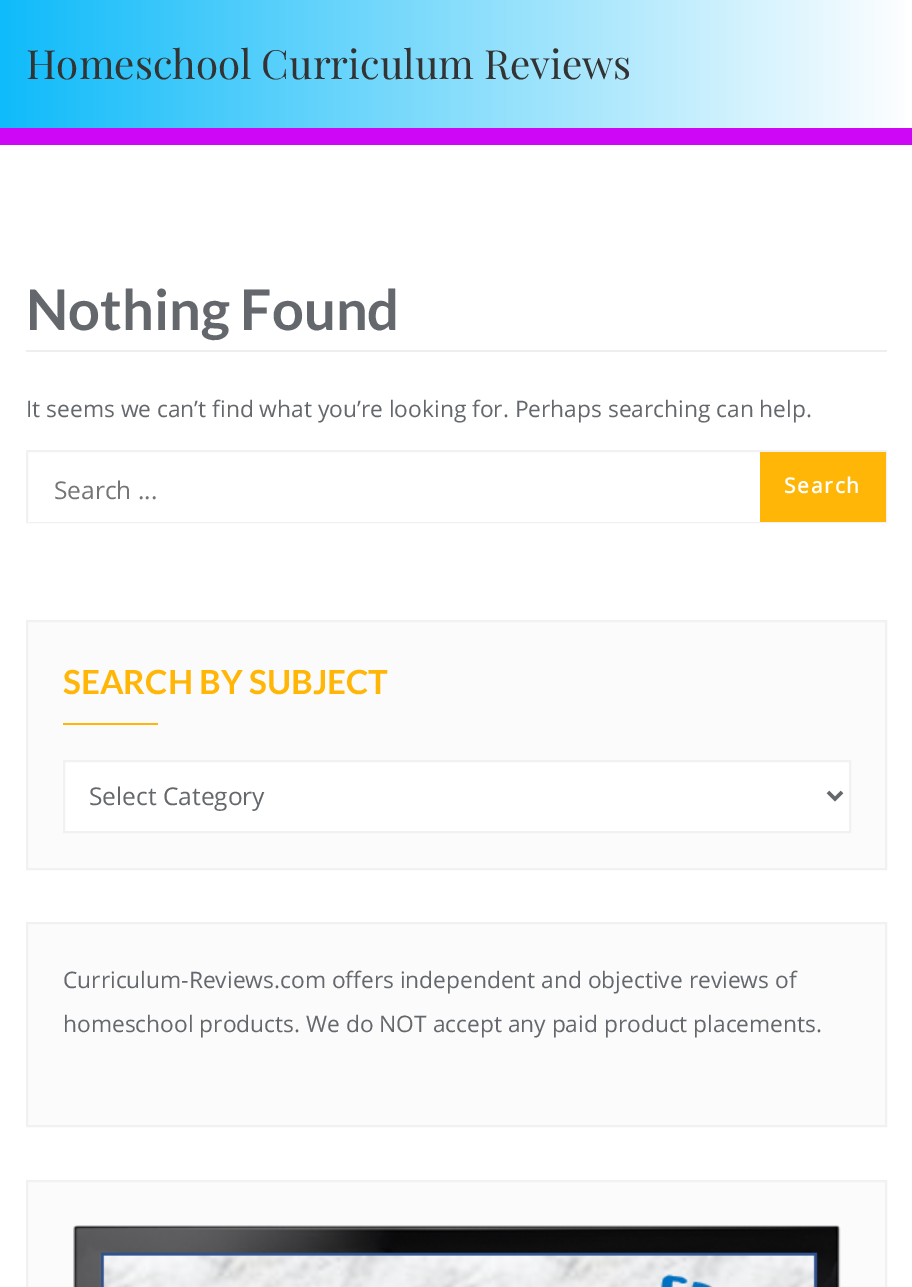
%!PS
<< /PageSize [912 1287] >> setpagedevice
/m/moveto load def
/l/rlineto load def
/z/closepath load def
/f/fill load def
/s/stroke load def
/q/gsave load def
/Q_/grestore load def
/w/setlinewidth load def
/C { dup -16 bitshift 255 div exch dup -8 bitshift 255 and 255 div exch 255 and 255 div setrgbcolor } def
/F { [ exch dup neg 0 0 3 -1 roll 0 0 ] selectfont } def
/T { moveto show } def
/R { rectfill } def
/I { 5 dict begin { /h /w /y /x /name } { exch def } forall
  gsave x y translate w h scale
  w h 8 [w 0 0 h 0 0] name (r) file false 3 colorimage grestore end } def
0 1287 translate 1 -1 scale
4 setmiterlimit
16#FFFFFF C
0 0 912 1287 R
16#CF07F7 C
0 128 912 17 R
q 0 0 m 905 0 l 0 128 l -905 0 l z clip newpath
<< /ShadingType 2 /ColorSpace /DeviceRGB /Coords [0 64 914 64] /Extend [true true] /Function << /FunctionType 2 /Domain [0 1] /C0 [.059 .733 .98] /C1 [1 1 1] /N 1 >> >> shfill Q_
/PlayfairDisplay-Regular 40.25 F
16#333333 C
(Homeschool Curriculum Reviews) 26 79 T
16#EEEEEE C
26 350 861 2 R
/Lato-Bold 56 F
16#64686D C
(Nothing Found) 26 330 T
/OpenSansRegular-Regular 22.75 F
(It seems we can’t find what you’re looking for. Perhaps searching can help.) 26 417 T
16#F1F1F1 C
2 w
27 451 859 71 rectstroke
16#FFFFFF C
28 521 732 1 R
/OpenSansRegular-Regular 24.5 F
16#757575 C
(Search ...) 54 499 T
16#FFB606 C
760 452 126 70 R
/OpenSansRegular-Bold 21 F
16#FFFFFF C
784 493 m 1.75 0 (Search) ashow
16#FBFBFB C
27 621 m 859 0 l 0 248 l -859 0 l z q f Q_
16#F1F1F1 C
s
/Lato-Bold 33.25 F
16#FFB606 C
(SEARCH BY SUBJECT) 63 694 T
63 723 95 2 R
16#FFFFFF C
64 761 m 786 0 l 0 71 l -786 0 l z q f Q_
16#F1F1F1 C
s
16#64686D C
3.5 w
828 792 m 7 7 l 7 -7 l s
/OpenSansRegular-Regular 24.5 F
(Select Category) 89 805 T
16#FBFBFB C
27 923 m 859 0 l 0 203 l -859 0 l z q f Q_
16#F1F1F1 C
2 w
s
/OpenSansRegular-Regular 22.75 F
16#64686D C
(Curriculum-Reviews.com offers independent and objective reviews of) 63 988 T
(homeschool products. We do NOT accept any paid product placements.) 63 1032 T
16#FBFBFB C
27 1181 m 859 0 l 0 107 l -859 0 l z q f Q_
16#F1F1F1 C
s
(1.rgb) 73 1225 768 62 I
showpage
